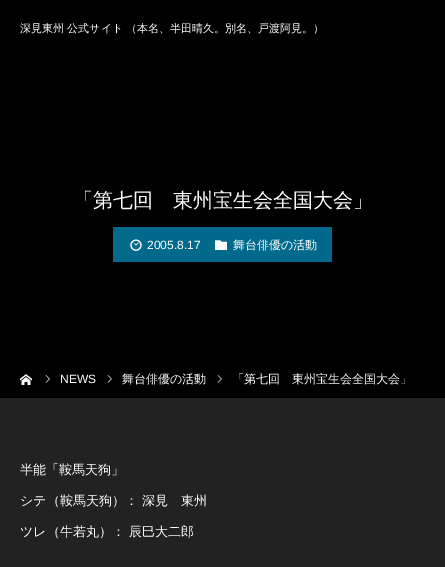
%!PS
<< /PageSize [445 567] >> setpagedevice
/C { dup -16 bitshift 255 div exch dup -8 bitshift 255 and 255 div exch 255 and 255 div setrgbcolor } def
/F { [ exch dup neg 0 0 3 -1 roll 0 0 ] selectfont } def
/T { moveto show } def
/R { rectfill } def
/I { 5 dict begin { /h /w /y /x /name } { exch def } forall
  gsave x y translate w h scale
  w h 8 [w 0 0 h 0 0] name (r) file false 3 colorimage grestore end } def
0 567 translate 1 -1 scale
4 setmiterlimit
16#000000 C
0 0 445 567 R
/WenQuanYiZenHei-Medium 11 F
16#FFFFFF C
(深見東州 公式サイト （本名、半田晴久。別名、戸渡阿見。）) 20 32 T
/WenQuanYiZenHei-Medium 20 F
(「第七回　東州宝生会全国大会」) 73 207 T
16#00698C C
113 227 219 35 R
(1.rgb) 130 239 12 12 I
/LiberationSans-Regular 12 F
16#FFFFFF C
(2005.8.17) 147 249 T
(2.rgb) 215 240 12 10 I
/WenQuanYiZenHei-Medium 12 F
(舞台俳優の活動) 233 249 T
(3.rgb) 20 374 12 11 I
(4.rgb) 45 375 5 8 I
/LiberationSans-Regular 12 F
(NEWS) 60 383 T
(4.rgb) 107 375 5 8 I
/WenQuanYiZenHei-Medium 12 F
(舞台俳優の活動) 122 383 T
(4.rgb) 217 375 5 8 I
(「第七回　東州宝生会全国大会」) 232 383 T
16#222222 C
0 398 445 169 R
/WenQuanYiZenHei-Medium 13 F
16#FFFFFF C
(半能「鞍馬天狗」) 20 474 T
(シテ（鞍馬天狗）： 深見　東州) 20 505 T
(ツレ（牛若丸）： 辰巳大二郎) 20 536 T
showpage
